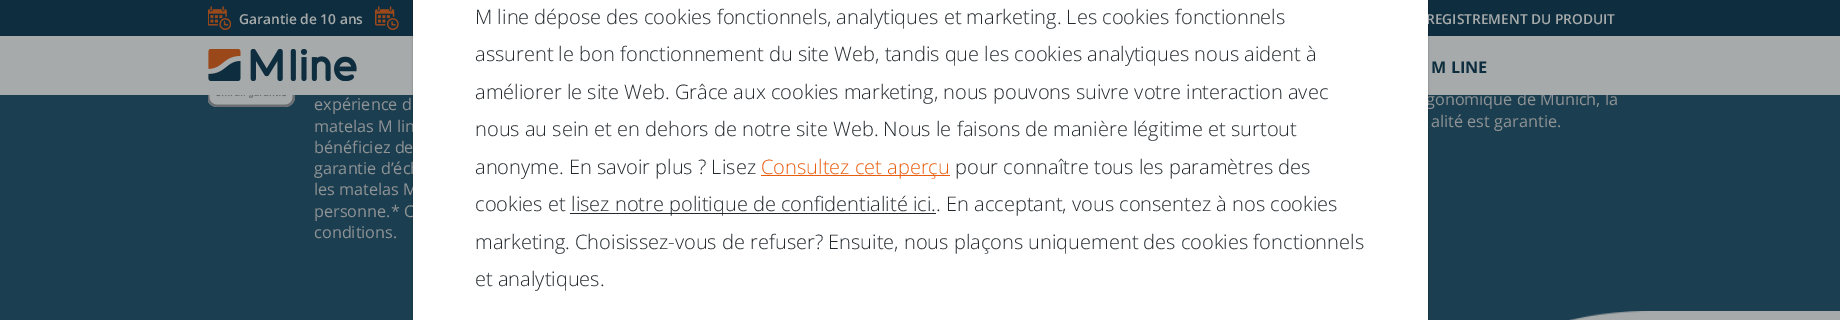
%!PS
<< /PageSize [1840 320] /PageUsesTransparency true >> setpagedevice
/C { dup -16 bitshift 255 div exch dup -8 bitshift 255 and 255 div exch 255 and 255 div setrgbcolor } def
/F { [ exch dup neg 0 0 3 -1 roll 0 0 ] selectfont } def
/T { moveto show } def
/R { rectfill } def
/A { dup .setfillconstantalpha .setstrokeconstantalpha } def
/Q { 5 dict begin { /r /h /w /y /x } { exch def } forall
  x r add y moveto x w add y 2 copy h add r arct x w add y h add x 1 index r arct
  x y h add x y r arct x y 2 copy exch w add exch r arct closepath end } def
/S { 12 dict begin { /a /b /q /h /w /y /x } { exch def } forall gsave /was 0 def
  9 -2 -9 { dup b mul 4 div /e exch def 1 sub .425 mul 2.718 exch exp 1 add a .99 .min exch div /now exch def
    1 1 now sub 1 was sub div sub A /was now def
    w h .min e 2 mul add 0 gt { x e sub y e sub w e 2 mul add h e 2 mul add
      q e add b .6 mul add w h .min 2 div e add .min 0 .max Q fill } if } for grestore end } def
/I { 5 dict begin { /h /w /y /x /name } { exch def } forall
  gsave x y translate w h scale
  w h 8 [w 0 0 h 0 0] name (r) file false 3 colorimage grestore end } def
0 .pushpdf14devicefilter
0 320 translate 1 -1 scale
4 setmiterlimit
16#1B3E50 C
0 0 1840 320 R
/OpenSans-Regular 16.25 F
16#909395 C
(gonomique de Munich, la) 1426 105 T
16#A7AAAB C
0 36 1840 59 R
16#0E2D3E C
0 0 1840 36 R
16#000000 C
413 -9 1015 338 6 1 .3 S
/OpenSans-SemiBold 13.75 F
16#A7AAAB C
(REGISTREMENT DU PRODUIT) 1426 24 T
/OpenSans-Regular 16.25 F
16#909395 C
(matelas M lin) 314 132 T
(garantie d’éch) 314 174 T
(les matelas M) 314 195 T
(personne.* C) 314 217 T
16#FFFFFF C
413 0 1015 320 R
/OpenSans-Light 20 F
16#23292D C
(M line dépose des cookies fonctionnels, analytiques et marketing. Les cookies fonctionnels) 475 24 T
(assurent le bon fonctionnement du site Web, tandis que les cookies analytiques nous aident à) 475 61 T
(améliorer le site Web. Grâce aux cookies marketing, nous pouvons suivre votre interaction avec) 475 99 T
(nous au sein et en dehors de notre site Web. Nous le faisons de manière légitime et surtout) 475 136 T
(anonyme. En savoir plus ? Lisez) 475 174 T
16#E95D0F C
761 175 189 1 R
(Consultez cet aperçu) 761 174 T
16#23292D C
(pour connaître tous les paramètres des) 955 174 T
(cookies et) 475 211 T
570 213 366 1 R
(lisez notre politique de confidentialité ici.. En acceptant, vous consentez à nos cookies) 571 211 T
(marketing. Choisissez-vous de refuser? Ensuite, nous plaçons uniquement des cookies fonctionnels) 475 249 T
(et analytiques.) 475 286 T
(1.rgb) 208 6 23 24 I
/OpenSans-SemiBold 13.75 F
16#A7AAAB C
(Garantie de 10 ans) 239 24 T
(2.rgb) 375 6 24 24 I
(3.rgb) 208 49 149 32 I
/OpenSans-Bold 16.25 F
16#0E2D3E C
(M LINE) 1431 73 T
(4.rgb) 208 95 87 12 I
/OpenSans-Regular 16.25 F
16#909395 C
(expérience d) 314 110 T
(bénéficiez de) 314 153 T
(conditions.) 314 238 T
(alité est garantie.) 1431 127 T
(5.rgb) 1569 311 82 9 I
16#A7AAAB C
1651 311 189 9 R
.poppdf14devicefilter showpage
